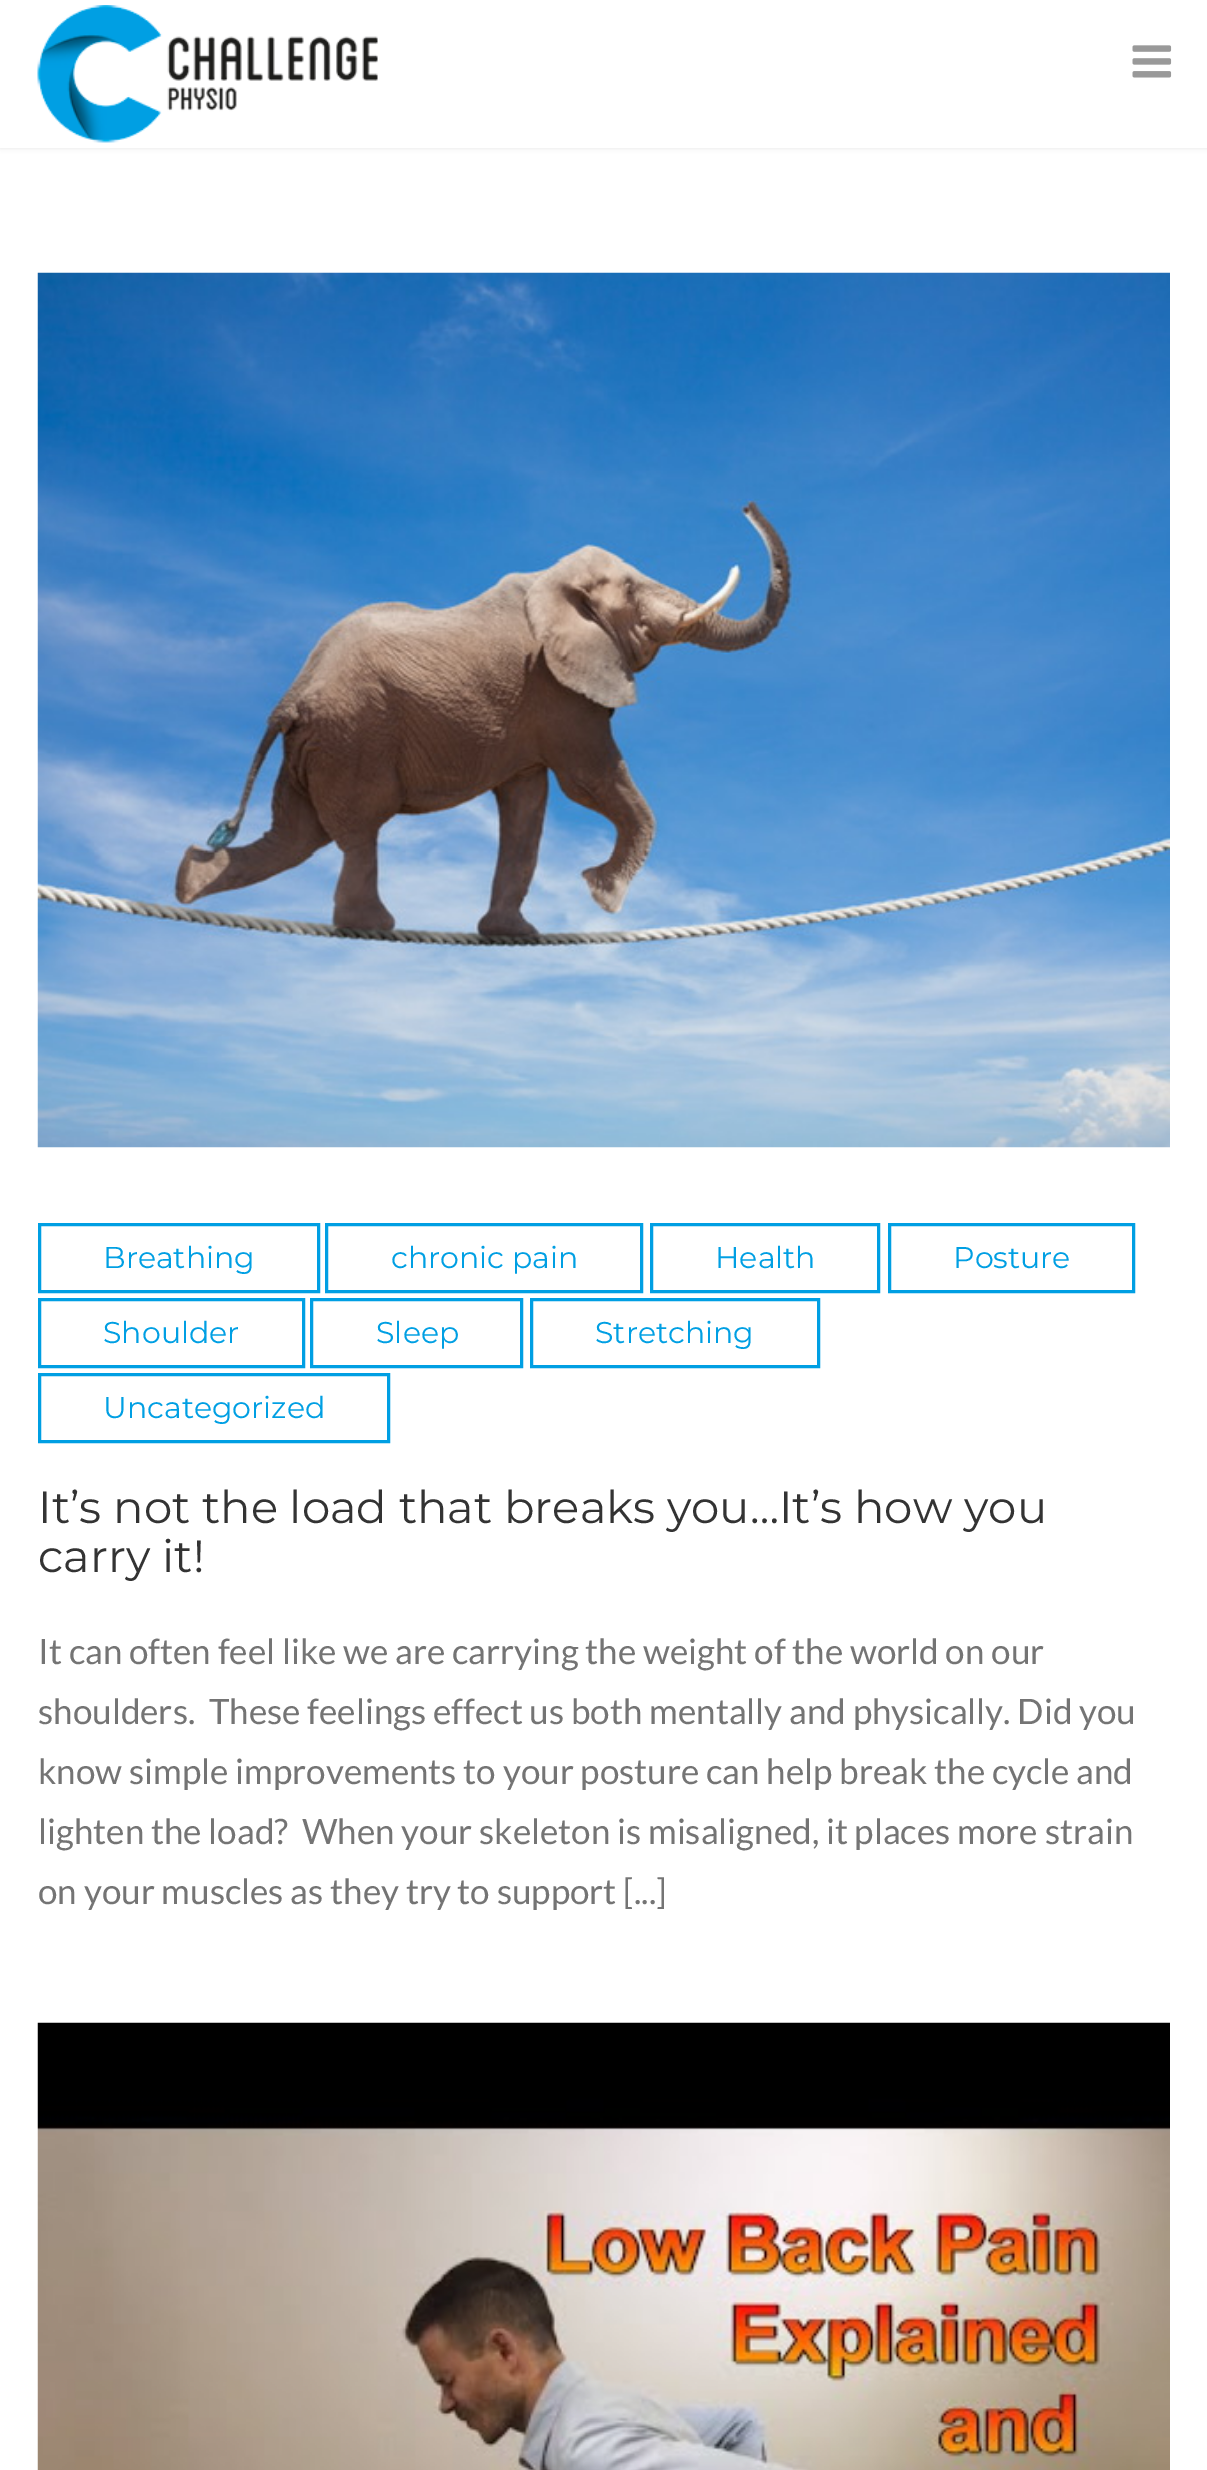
%!PS
<< /PageSize [1207 2470] /PageUsesTransparency true >> setpagedevice
/w/setlinewidth load def
/C { dup -16 bitshift 255 div exch dup -8 bitshift 255 and 255 div exch 255 and 255 div setrgbcolor } def
/F { [ exch dup neg 0 0 3 -1 roll 0 0 ] selectfont } def
/T { moveto show } def
/R { rectfill } def
/A { dup .setfillconstantalpha .setstrokeconstantalpha } def
/Q { 5 dict begin { /r /h /w /y /x } { exch def } forall
  x r add y moveto x w add y 2 copy h add r arct x w add y h add x 1 index r arct
  x y h add x y r arct x y 2 copy exch w add exch r arct closepath end } def
/S { 12 dict begin { /a /b /q /h /w /y /x } { exch def } forall gsave /was 0 def
  9 -2 -9 { dup b mul 4 div /e exch def 1 sub .425 mul 2.718 exch exp 1 add a .99 .min exch div /now exch def
    1 1 now sub 1 was sub div sub A /was now def
    w h .min e 2 mul add 0 gt { x e sub y e sub w e 2 mul add h e 2 mul add
      q e add b .6 mul add w h .min 2 div e add .min 0 .max Q fill } if } for grestore end } def
/I { 5 dict begin { /h /w /y /x /name } { exch def } forall
  gsave x y translate w h scale
  w h 8 [w 0 0 h 0 0] name (r) file false 3 colorimage grestore end } def
0 .pushpdf14devicefilter
0 2470 translate 1 -1 scale
4 setmiterlimit
16#FFFFFF C
0 0 1207 2470 R
16#000000 C
0 0 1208 148 0 2.5 .1 S
16#FFFFFF C
0 0 1207 148 R
(1.rgb) 37 5 341 138 I
(2.rgb) 1132 45 40 33 I
(3.rgb) 37 272 1133 876 I
16#009FE3 C
3 w
39.5 1224.5 279 67 rectstroke
/Montserrat-Regular 30 F
(Breathing) 103 1268 T
326.5 1224.5 315 67 rectstroke
(chronic pain) 391 1268 T
651.5 1224.5 227 67 rectstroke
(Health) 715 1268 T
889.5 1224.5 244 67 rectstroke
(Posture) 953 1268 T
39.5 1299.5 264 67 rectstroke
(Shoulder) 103 1343 T
311.5 1299.5 210 67 rectstroke
(Sleep) 376 1343 T
531.5 1299.5 287 67 rectstroke
(Stretching) 595 1343 T
39.5 1374.5 349 67 rectstroke
(Uncategorized) 103 1418 T
/Montserrat-Regular 45 F
16#333333 C
(It’s not the load that breaks you…It’s how you) 38 1523 T
(carry it!) 38 1572 T
/Lato-Regular 35 F
16#747474 C
(It can often feel like we are carrying the weight of the world on our) 38 1664 T
(shoulders.  These feelings effect us both mentally and physically. Did you) 38 1724 T
(know simple improvements to your posture can help break the cycle and) 38 1784 T
(lighten the load?  When your skeleton is misaligned, it places more strain) 38 1844 T
(on your muscles as they try to support [...]) 38 1904 T
(4.rgb) 37 2022 1133 448 I
.poppdf14devicefilter showpage
